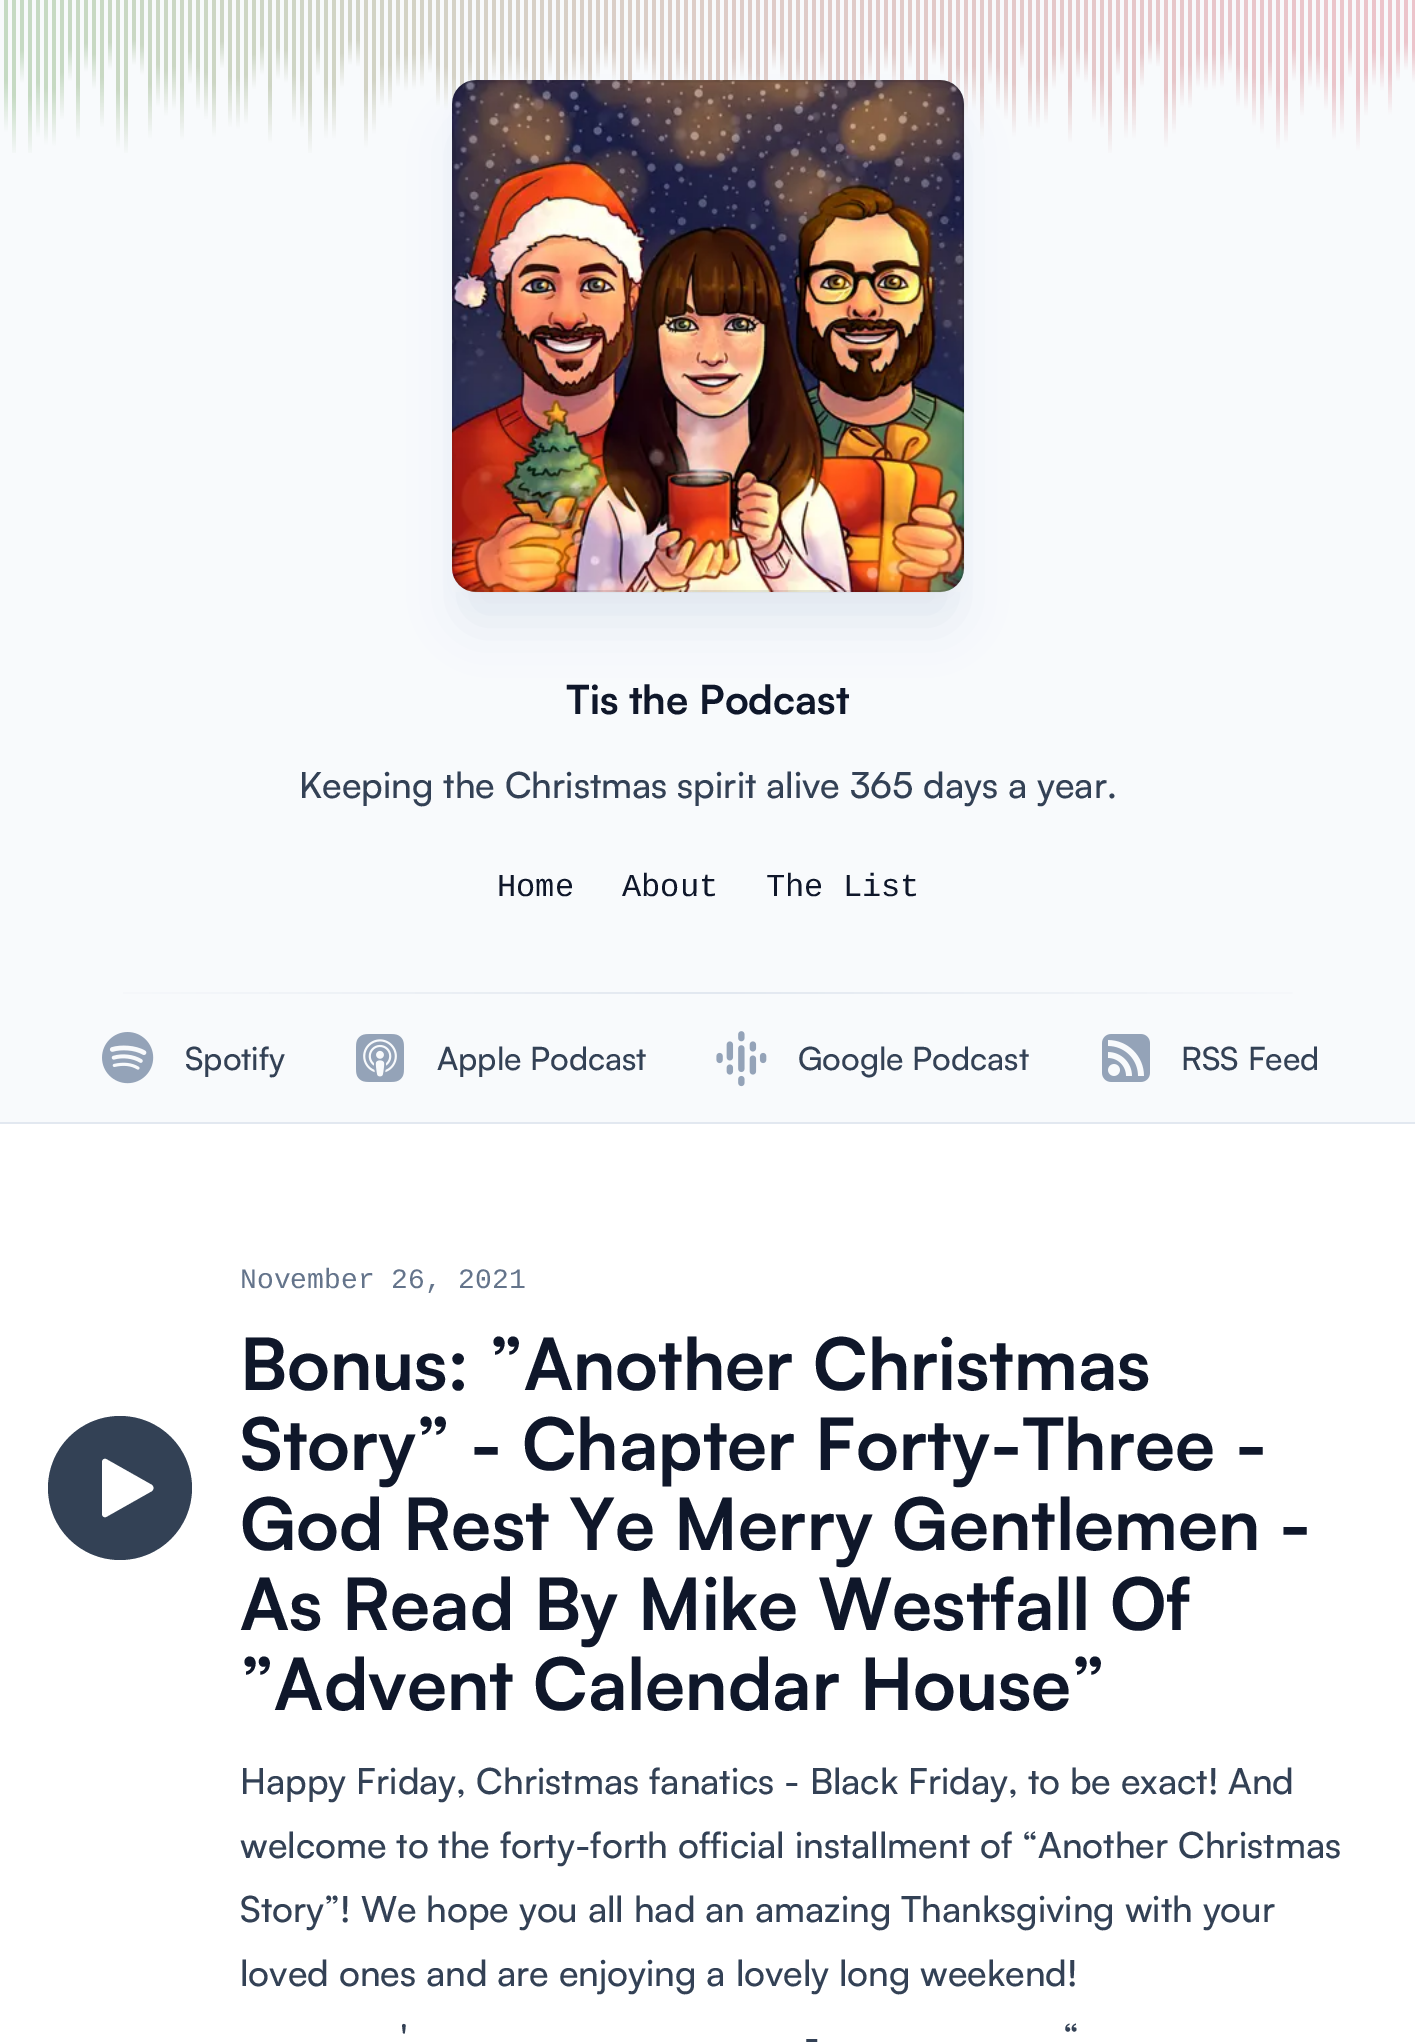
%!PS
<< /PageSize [1415 2042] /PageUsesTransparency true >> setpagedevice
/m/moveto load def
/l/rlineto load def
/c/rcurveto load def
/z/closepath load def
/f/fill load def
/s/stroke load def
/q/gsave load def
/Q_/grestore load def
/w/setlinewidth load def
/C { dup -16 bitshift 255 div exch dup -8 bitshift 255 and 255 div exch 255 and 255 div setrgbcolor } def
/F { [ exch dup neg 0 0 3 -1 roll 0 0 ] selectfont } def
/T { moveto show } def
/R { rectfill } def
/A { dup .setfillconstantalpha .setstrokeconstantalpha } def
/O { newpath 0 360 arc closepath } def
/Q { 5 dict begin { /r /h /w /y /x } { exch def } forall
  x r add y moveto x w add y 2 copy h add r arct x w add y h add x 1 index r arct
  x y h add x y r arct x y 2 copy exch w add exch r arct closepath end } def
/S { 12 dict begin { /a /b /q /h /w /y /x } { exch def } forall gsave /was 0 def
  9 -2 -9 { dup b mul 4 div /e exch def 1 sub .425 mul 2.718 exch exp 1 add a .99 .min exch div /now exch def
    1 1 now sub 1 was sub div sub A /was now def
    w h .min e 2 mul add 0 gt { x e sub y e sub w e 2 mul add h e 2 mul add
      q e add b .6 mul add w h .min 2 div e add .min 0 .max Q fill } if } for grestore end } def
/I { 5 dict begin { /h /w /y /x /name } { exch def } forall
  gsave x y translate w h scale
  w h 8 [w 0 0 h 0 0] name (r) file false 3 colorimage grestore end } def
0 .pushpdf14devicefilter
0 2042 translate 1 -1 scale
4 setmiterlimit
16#FFFFFF C
0 0 1415 2042 R
16#F8FAFC C
0 0 1415 1122 R
(6.rgb) 4 0 1411 153 I
16#E2E8F0 C
464 108 488 488 12 10 1 S
462 130 492 492 14 25 1 S
(1.rgb) 452 80 512 512 I
0.1 A
16#000000 C
2 w
453 81 510 510 23 Q s
/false-Bold 40 F
1 A
16#0F172A C
(Tis the Podcast) 566 714 T
/Satoshi-Medium 36 F
16#334155 C
(Keeping the Christmas spirit alive 365 days a year.) 299 798 T
/LiberationMono-Regular 32 F
16#0F172A C
(Home) 497 896 T
(About) 622 896 T
(The List) 766 896 T
q 123 992 m 1170 0 l 0 2 l -1170 0 l z clip newpath
<< /ShadingType 2 /ColorSpace /DeviceRGB /Coords [48 993 1368 993] /Extend [true true] /Function << /FunctionType 3 /Domain [0 1] /Functions [<< /FunctionType 2 /Domain [0 1] /C0 [.973 .98 .988] /C1 [.886 .91 .941] /N 1 >> << /FunctionType 2 /Domain [0 1] /C0 [.886 .91 .941] /C1 [.973 .98 .988] /N 1 >>] /Bounds [.5] /Encode [0 1 0 1] >> >> shfill Q_
(2.rgb) 102 1032 52 52 I
/Satoshi-Medium 32 F
16#334155 C
(Spotify) 185 1070 T
(3.rgb) 356 1034 48 48 I
(Apple Podcast) 437 1070 T
(4.rgb) 716 1031 51 56 I
(Google Podcast) 798 1070 T
(5.rgb) 1102 1034 48 48 I
(RSS Feed) 1181 1070 T
16#E2E8F0 C
0 1122 1415 2 R
16#334155 C
120 1488 72 O f
16#FFFFFF C
152 1485 m 2 2 2 4 0 6 c -46 26 l -2 1 -4 -1 -4 -3 c 0 -52 l 0 -2 2 -4 4 -3 c z f
/LiberationMono-Regular 28 F
16#64748B C
(November 26, 2021) 240 1288 T
/false-Bold 72 F
16#0F172A C
(Bonus: ”Another Christmas) 240 1390 T
(Story” - Chapter Forty-Three -) 240 1470 T
(God Rest Ye Merry Gentlemen -) 240 1550 T
(As Read By Mike Westfall Of) 240 1630 T
(”Advent Calendar House”) 240 1710 T
/Satoshi-Medium 36 F
16#334155 C
(Happy Friday, Christmas fanatics - Black Friday, to be exact! And) 240 1794 T
(welcome to the forty-forth official installment of “Another Christmas) 240 1858 T
(Story”! We hope you all had an amazing Thanksgiving with your) 240 1922 T
(loved ones and are enjoying a lovely long weekend!) 240 1986 T
(') 400 2050 T
(“) 1063 2050 T
(-) 804 2050 T
.poppdf14devicefilter showpage
